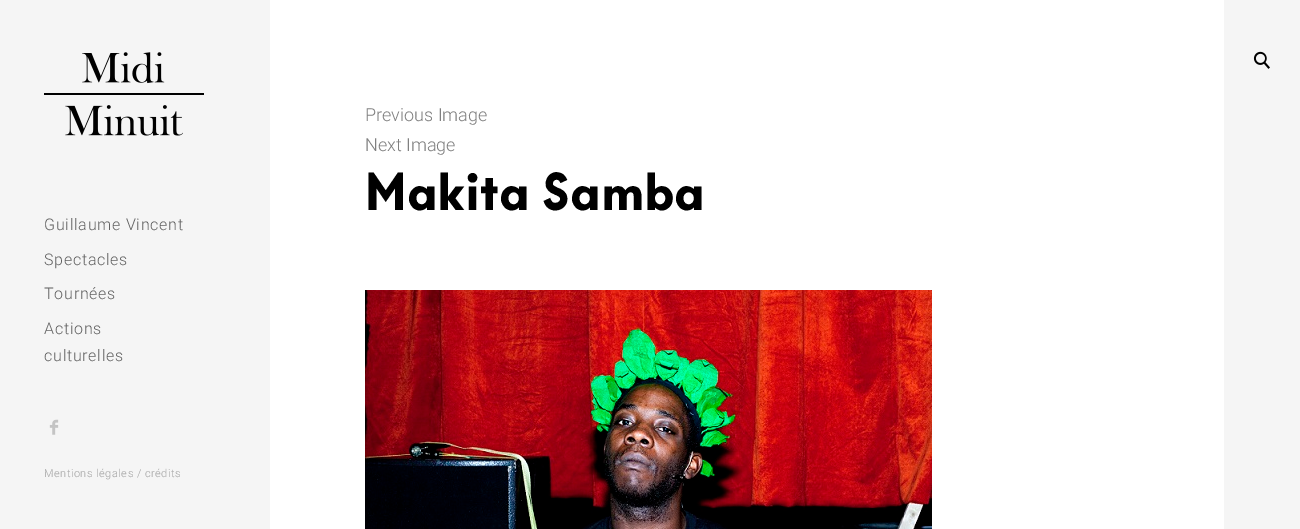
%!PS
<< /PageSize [1300 529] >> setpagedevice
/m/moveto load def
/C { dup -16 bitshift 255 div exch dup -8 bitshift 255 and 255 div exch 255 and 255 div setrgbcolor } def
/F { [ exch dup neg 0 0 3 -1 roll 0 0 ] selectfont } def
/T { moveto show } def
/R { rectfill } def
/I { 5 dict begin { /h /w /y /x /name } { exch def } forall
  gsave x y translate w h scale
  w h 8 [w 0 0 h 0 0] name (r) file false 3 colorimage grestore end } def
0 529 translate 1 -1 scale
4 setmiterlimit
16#F5F5F5 C
0 0 1300 529 R
(1.rgb) 1253 51 17 18 I
16#FFFFFF C
270 0 954 529 R
/Roboto-Light 18 F
16#808080 C
(Previous Image) 365 121 T
(Next Image) 365 151 T
/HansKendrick-Black 50 F
16#000000 C
(Makita Samba) 365 210 T
(2.rgb) 365 290 567 239 I
(3.rgb) 44 52 160 84 I
/Roboto-Light 16 F
16#626262 C
44 230 m .75 0 (Guillaume Vincent) ashow
44 265 m .75 0 (Spectacles) ashow
44 299 m .75 0 (Tournées) ashow
44 334 m .75 0 (Actions) ashow
44 361 m .75 0 (culturelles) ashow
(4.rgb) 49 419 10 16 I
/Roboto-Light 11 F
16#A1A1A1 C
44 477 m .5 0 (Mentions légales / crédits) ashow
showpage
